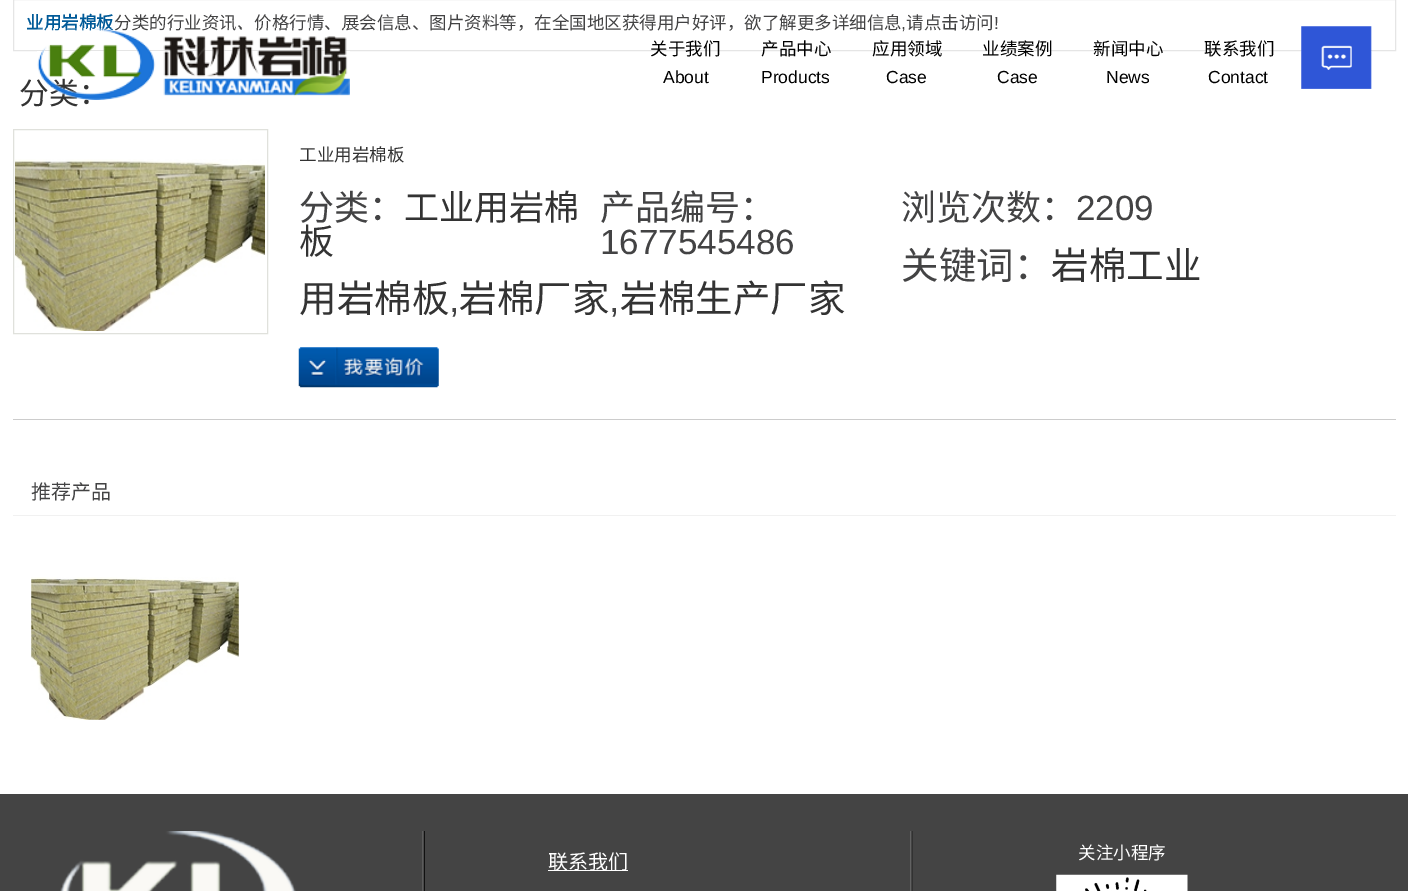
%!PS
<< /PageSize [1408 891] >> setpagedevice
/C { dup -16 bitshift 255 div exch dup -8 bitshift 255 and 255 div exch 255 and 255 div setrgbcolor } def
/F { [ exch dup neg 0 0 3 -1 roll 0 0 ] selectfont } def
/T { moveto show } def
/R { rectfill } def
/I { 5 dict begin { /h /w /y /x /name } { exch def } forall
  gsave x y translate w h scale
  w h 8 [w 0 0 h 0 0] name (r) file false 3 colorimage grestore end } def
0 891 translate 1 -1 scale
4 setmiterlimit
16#FFFFFF C
0 0 1408 891 R
16#E5E5E5 C
13.5 -.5 1382 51 rectstroke
/NotoSansCJKSC-Bold 17.5 F
16#005A98 C
(业用岩棉板) 26 29 T
/NotoSansCJKSC-Regular 17.5 F
16#434344 C
(分类的行业资讯、价格行情、展会信息、图片资料等，在全国地区获得用户好评，欲了解更多详细信息) 114 29 T
(请点击访问) 906 29 T
/LiberationSans-Regular 17.5 F
(!) 994 29 T
(,) 901 29 T
/NotoSansCJKSC-Regular 30 F
16#333333 C
(分类：) 19 104 T
16#CCCCCC C
13 419 1383 1 R
16#E0E1DC C
13.5 129.5 254 204 rectstroke
(1.rgb) 15 159 250 172 I
/NotoSansCJKSC-Regular 17.5 F
16#333333 C
(工业用岩棉板) 299 161 T
/NotoSansCJKSC-Regular 35 F
16#434344 C
(分类：) 299 220 T
16#333333 C
(工业用岩棉) 404 220 T
(板) 299 254 T
16#434344 C
(产品编号：) 600 220 T
/LiberationSans-Regular 35 F
(1677545486) 600 254 T
/NotoSansCJKSC-Regular 35 F
(浏览次数：) 901 220 T
/LiberationSans-Regular 35 F
(2209) 1076 220 T
/NotoSansCJKSC-Regular 37.5 F
(关键词：) 901 279 T
16#333333 C
(岩棉工业) 1051 279 T
(用岩棉板) 299 312 T
/LiberationSans-Regular 37.5 F
16#434344 C
(,) 449 312 T
/NotoSansCJKSC-Regular 37.5 F
16#333333 C
(岩棉厂家) 459 312 T
/LiberationSans-Regular 37.5 F
16#434344 C
(,) 609 312 T
/NotoSansCJKSC-Regular 37.5 F
16#333333 C
(岩棉生产厂家) 620 312 T
(2.rgb) 298 347 141 41 I
16#F1F1F1 C
13 515 1383 1 R
/NotoSansCJKSC-Regular 20 F
16#434344 C
(推荐产品) 31 499 T
(3.rgb) 31 577 208 143 I
(4.rgb) 37 28 313 72 I
/NotoSansCJKSC-Regular 17.5 F
16#000000 C
(关于我们) 650 55 T
/LiberationSans-Regular 17.5 F
(About) 663 83 T
/NotoSansCJKSC-Regular 17.5 F
(产品中心) 761 55 T
/LiberationSans-Regular 17.5 F
(Products) 761 83 T
/NotoSansCJKSC-Regular 17.5 F
(应用领域) 872 55 T
/LiberationSans-Regular 17.5 F
(Case) 886 83 T
/NotoSansCJKSC-Regular 17.5 F
(业绩案例) 982 55 T
/LiberationSans-Regular 17.5 F
(Case) 997 83 T
/NotoSansCJKSC-Regular 17.5 F
(新闻中心) 1093 55 T
/LiberationSans-Regular 17.5 F
(News) 1106 83 T
/NotoSansCJKSC-Regular 17.5 F
(联系我们) 1204 55 T
/LiberationSans-Regular 17.5 F
(Contact) 1208 83 T
(5.rgb) 1301 26 71 63 I
16#444444 C
0 794 1408 97 R
(6.rgb) 60 831 236 60 I
(7.rgb) 422 831 491 60 I
16#FFFFFF C
548 870 80 1 R
/NotoSansCJKSC-Regular 20 F
(联系我们) 548 869 T
/NotoSansCJKSC-Regular 17.5 F
(关注小程序) 1078 859 T
(8.rgb) 1056 874 132 17 I
showpage
